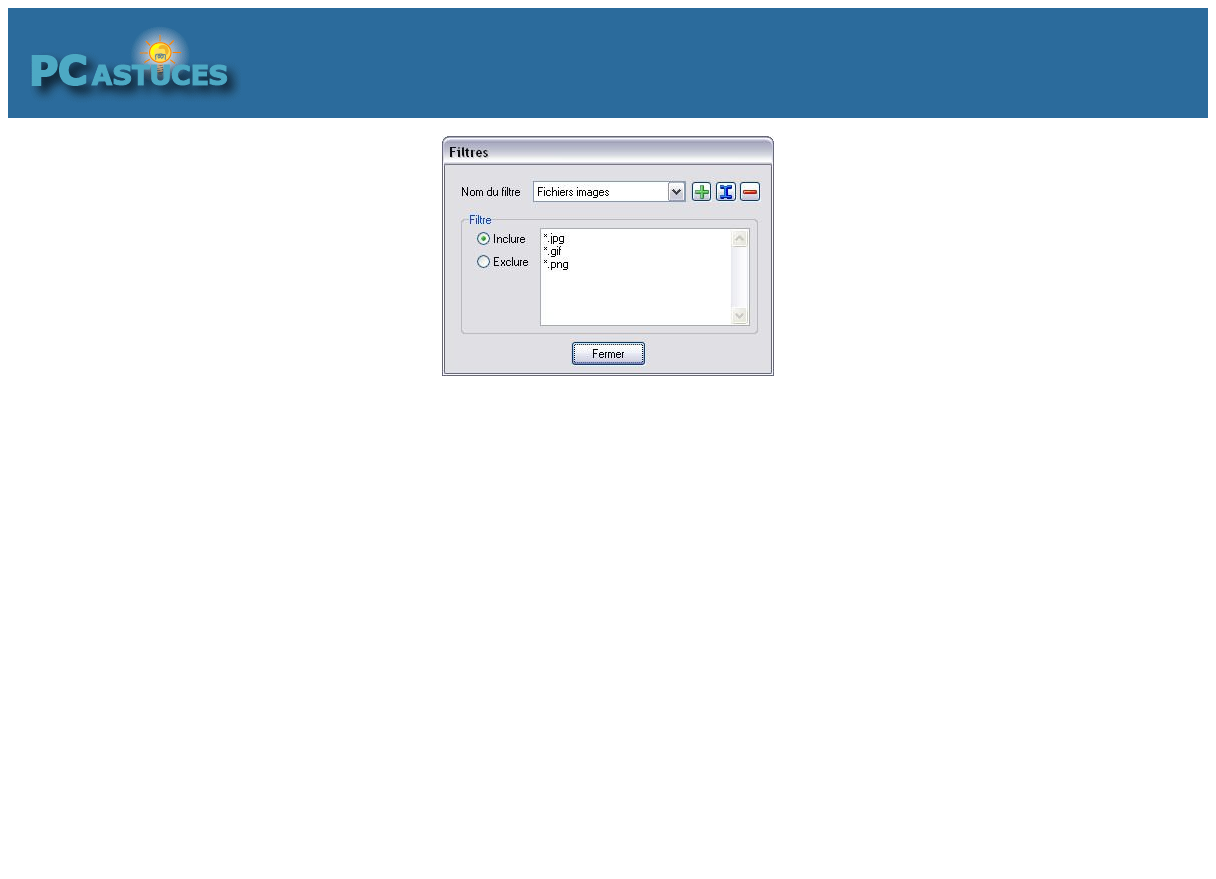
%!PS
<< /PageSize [1216 879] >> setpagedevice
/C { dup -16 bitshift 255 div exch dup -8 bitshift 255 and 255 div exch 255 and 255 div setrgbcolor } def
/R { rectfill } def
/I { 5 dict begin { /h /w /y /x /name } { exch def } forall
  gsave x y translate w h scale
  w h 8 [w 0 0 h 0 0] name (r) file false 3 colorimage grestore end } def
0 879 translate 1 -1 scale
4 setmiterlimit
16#FFFFFF C
0 0 1216 879 R
16#2B6B9C C
8 8 1200 110 R
(1.rgb) 30 26 211 77 I
(2.rgb) 442 136 332 240 I
showpage
